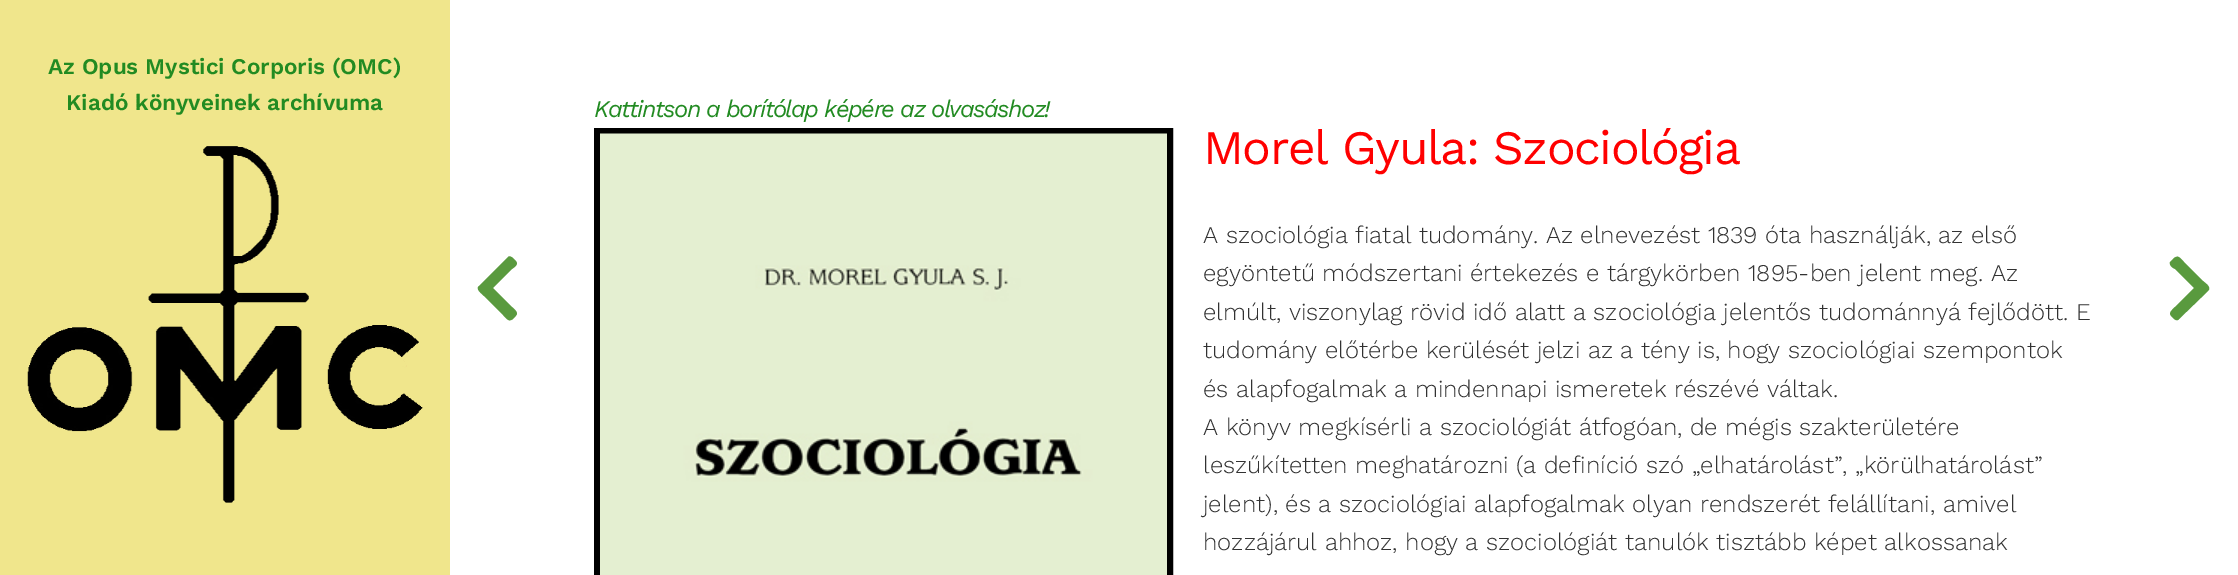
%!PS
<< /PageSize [2238 575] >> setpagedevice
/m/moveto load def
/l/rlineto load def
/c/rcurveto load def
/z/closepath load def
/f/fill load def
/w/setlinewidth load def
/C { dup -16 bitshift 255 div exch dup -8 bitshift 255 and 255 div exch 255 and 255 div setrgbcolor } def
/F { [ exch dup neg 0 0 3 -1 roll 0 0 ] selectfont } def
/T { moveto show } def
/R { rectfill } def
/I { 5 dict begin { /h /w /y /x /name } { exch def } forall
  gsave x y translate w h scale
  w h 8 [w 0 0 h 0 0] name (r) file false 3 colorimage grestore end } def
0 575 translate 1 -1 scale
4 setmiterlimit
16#FFFFFF C
0 0 2238 575 R
16#F0E68C C
0 0 450 575 R
/WorkSans-SemiBold 22.5 F
16#228B22 C
(Az Opus Mystici Corporis \(OMC\)) 48 74 T
(Kiadó könyveinek archívuma) 66 110 T
(1.rgb) 27 146 396 357 I
/WorkSans-Italic 24 F
594 117 m -1.5 0 (Kattintson a borítólap képére az olvasáshoz!) ashow
16#000000 C
6 w
597 131 573 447 rectstroke
(2.rgb) 600 133 567 442 I
/WorkSans-Regular 48 F
16#FF0000 C
1203 164 m -1.5 0 (Morel Gyula: Szociológia) ashow
/WorkSans-Light 24 F
16#323232 C
(A szociológia fiatal tudomány. Az elnevezést 1839 óta használják, az első) 1203 243 T
(egyöntetű módszertani értekezés e tárgykörben 1895-ben jelent meg. Az) 1203 281 T
(elmúlt, viszonylag rövid idő alatt a szociológia jelentős tudománnyá fejlődött. E) 1203 320 T
(tudomány előtérbe kerülését jelzi az a tény is, hogy szociológiai szempontok) 1203 358 T
(és alapfogalmak a mindennapi ismeretek részévé váltak.) 1203 397 T
(A könyv megkísérli a szociológiát átfogóan, de mégis szakterületére) 1203 435 T
(leszűkítetten meghatározni \(a definíció szó „elhatárolást”, „körülhatárolást”) 1203 473 T
(jelent\), és a szociológiai alapfogalmak olyan rendszerét felállítani, amivel) 1203 512 T
(hozzájárul ahhoz, hogy a szociológiát tanulók tisztább képet alkossanak) 1203 550 T
16#599A3E C
479 286 m 29 -29 l 2 -2 5 1 7 3 c 4 4 1 6 -3 9 c -19 19 l 19 19 l 2 2 5 4 5 7 c -1 2 -2 3 -3 4 c -5 5 -7 1 -11 -3 c -19 -19 l -2 -2 -9 -7 -5 -10 c z f
2208 291 m -29 28 l -2 3 -5 0 -7 -2 c -4 -4 -1 -6 3 -10 c 19 -19 l -19 -19 l -2 -1 -6 -3 -5 -7 c 1 -1 2 -2 3 -3 c 5 -5 7 -1 11 3 c 19 19 l 2 2 9 6 5 10 c z f
showpage
